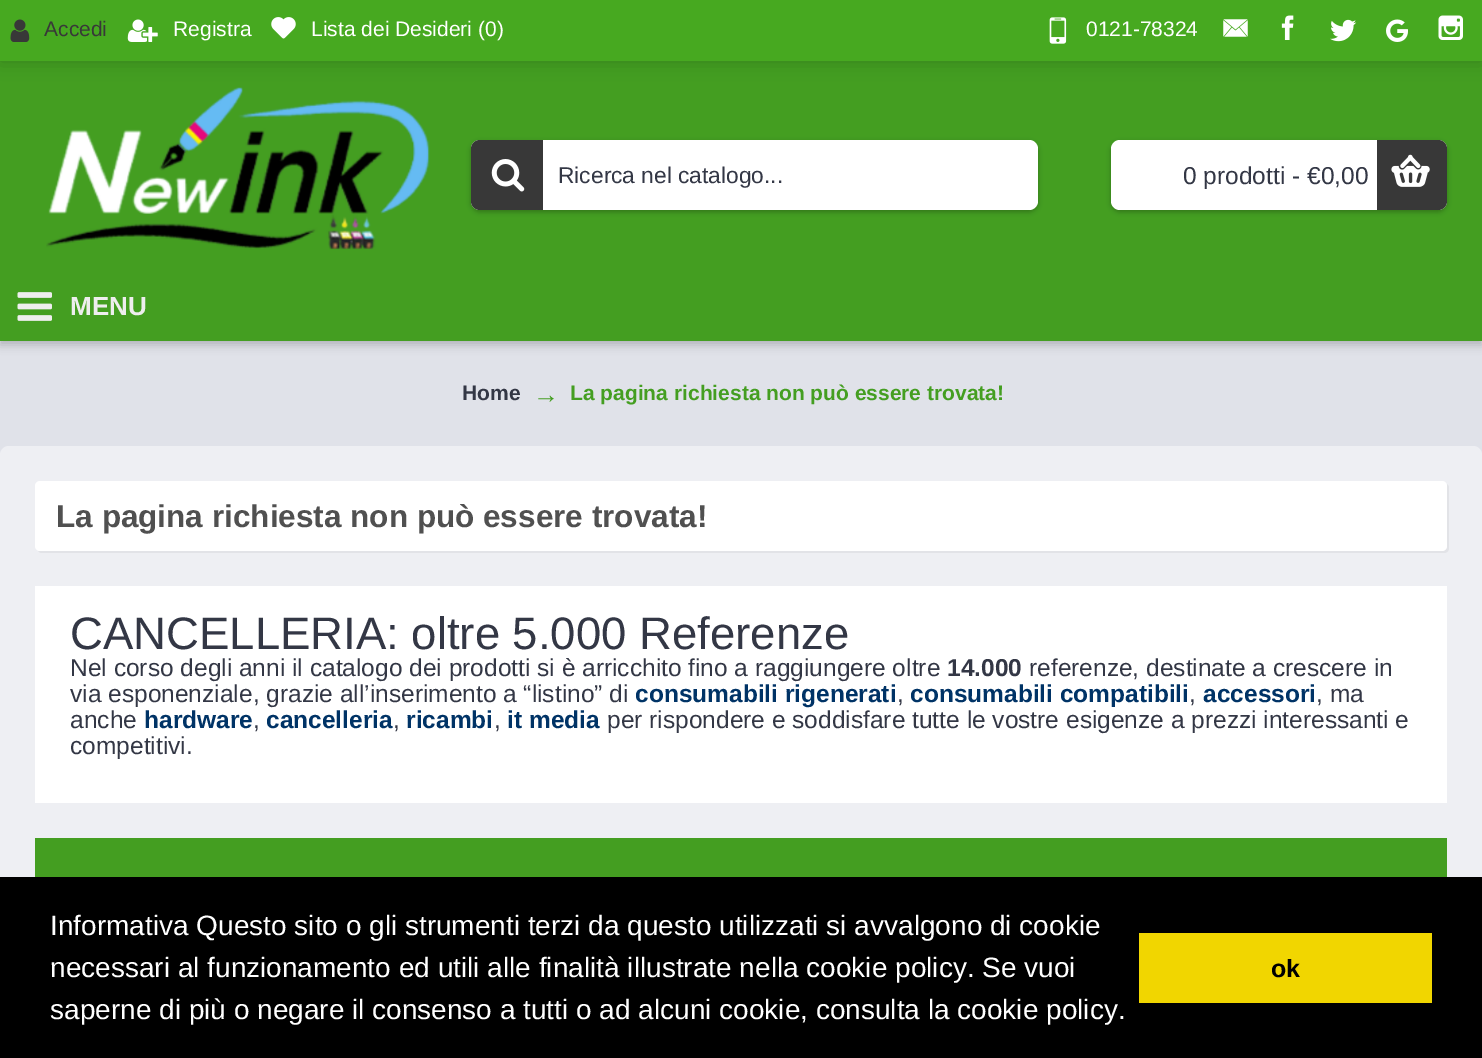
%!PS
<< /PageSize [1482 1058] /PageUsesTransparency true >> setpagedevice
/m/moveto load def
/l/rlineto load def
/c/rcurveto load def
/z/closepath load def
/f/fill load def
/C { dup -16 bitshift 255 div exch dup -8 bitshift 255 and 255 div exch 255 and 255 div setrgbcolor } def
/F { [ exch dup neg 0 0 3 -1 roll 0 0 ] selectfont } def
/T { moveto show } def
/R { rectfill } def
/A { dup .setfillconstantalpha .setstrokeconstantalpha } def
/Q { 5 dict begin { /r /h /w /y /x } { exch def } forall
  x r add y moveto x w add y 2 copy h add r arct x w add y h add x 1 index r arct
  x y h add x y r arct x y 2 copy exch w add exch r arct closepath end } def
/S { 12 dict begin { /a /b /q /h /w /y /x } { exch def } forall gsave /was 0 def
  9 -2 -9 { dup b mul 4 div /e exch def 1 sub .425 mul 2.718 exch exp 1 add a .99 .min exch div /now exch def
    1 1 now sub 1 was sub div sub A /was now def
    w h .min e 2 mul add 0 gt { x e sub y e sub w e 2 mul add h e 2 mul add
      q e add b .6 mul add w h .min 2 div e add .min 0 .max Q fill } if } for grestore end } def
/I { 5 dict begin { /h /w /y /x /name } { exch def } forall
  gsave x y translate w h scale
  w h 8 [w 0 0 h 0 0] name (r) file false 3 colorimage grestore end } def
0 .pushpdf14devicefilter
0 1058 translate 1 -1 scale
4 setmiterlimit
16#E0E2E9 C
0 0 1482 1058 R
16#000000 C
0 4 1482 341 0 4.5 .2 S
16#449E21 C
0 61 1482 280 R
16#000000 C
0 0 1482 61 0 9 .2 S
16#47A920 C
0 0 1482 61 R
(1.rgb) 10 19 20 23 I
/LiberationSans-Regular 21 F
16#383838 C
(Accedi) 44 36 T
(2.rgb) 127 19 31 23 I
16#FFFFFF C
(Registra) 173 36 T
(3.rgb) 271 17 25 22 I
(Lista dei Desideri \(0\)) 311 36 T
(4.rgb) 1049 17 18 27 I
(0121-78324) 1086 36 T
(5.rgb) 1223 19 25 18 I
(6.rgb) 1281 15 13 25 I
(7.rgb) 1330 19 27 23 I
(8.rgb) 1386 19 22 23 I
(9.rgb) 1438 15 25 25 I
(10.rgb) 46 87 384 163 I
16#000000 C
471 142 567 70 9 2.5 .25 S
16#FFFFFF C
471 140 567 70 9 Q f
16#383838 C
480 140 m 63 0 l 0 70 l -63 0 l -5 0 -9 -4 -9 -9 c 0 -52 l 0 -5 4 -9 9 -9 c z f
(11.rgb) 491 159 34 33 I
/LiberationSans-Regular 22.75 F
16#333745 C
(Ricerca nel catalogo...) 558 183 T
16#000000 C
1111 142 336 70 9 2.5 .25 S
16#FFFFFF C
1111 140 336 70 9 Q f
/LiberationSans-Regular 24.5 F
16#333745 C
(0 prodotti - €0,00) 1183 184 T
16#383838 C
1377 140 m 61 0 l 5 0 9 4 9 9 c 0 52 l 0 5 -4 9 -9 9 c -61 0 l z f
(12.rgb) 1391 154 39 33 I
(13.rgb) 17 292 35 29 I
/LiberationSans-Bold 26 F
16#EEEEEE C
(MENU) 70 315 T
/LiberationSans-Bold 21 F
16#333745 C
(Home) 462 400 T
/LiberationSerif-Regular 26 F
16#449E21 C
(→) 533 403 T
/LiberationSans-Bold 21 F
(La pagina richiesta non può essere trovata!) 570 400 T
16#EEEFF3 C
0 446 1482 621 9 Q f
16#E2E3E7 C
38 551 m 1 1 2 2 4 2 c 1402 0 l 3 0 5 -2 5 -5 c 0 -60 l 0 -2 -1 -4 -3 -4 c 1 2 l 0 60 l 0 3 -2 5 -5 5 c -1402 0 l z f
16#FFFFFF C
35 481 1412 70 5 Q f
/LiberationSans-Bold 31.5 F
16#505050 C
(La pagina richiesta non può essere trovata!) 56 527 T
16#FFFFFF C
35 586 1412 217 R
/LiberationSans-Regular 45.5 F
16#333745 C
(CANCELLERIA: oltre 5.000 Referenze) 70 649 T
/LiberationSans-Regular 24.5 F
(Nel corso degli anni il catalogo dei prodotti si è arricchito fino a raggiungere oltre) 70 676 T
/LiberationSans-Bold 24.5 F
(14.000) 947 676 T
/LiberationSans-Regular 24.5 F
(referenze, destinate a crescere in) 1029 676 T
(via esponenziale, grazie all’inserimento a “listino” di) 70 702 T
/LiberationSans-Bold 24.5 F
16#003366 C
(consumabili rigenerati) 635 702 T
/LiberationSans-Regular 24.5 F
16#333745 C
(,) 897 702 T
/LiberationSans-Bold 24.5 F
16#003366 C
(consumabili compatibili) 910 702 T
/LiberationSans-Regular 24.5 F
16#333745 C
(,) 1189 702 T
/LiberationSans-Bold 24.5 F
16#003366 C
(accessori) 1203 702 T
/LiberationSans-Regular 24.5 F
16#333745 C
(, ma) 1316 702 T
(anche) 70 728 T
/LiberationSans-Bold 24.5 F
16#003366 C
(hardware) 144 728 T
/LiberationSans-Regular 24.5 F
16#333745 C
(,) 253 728 T
/LiberationSans-Bold 24.5 F
16#003366 C
(cancelleria) 266 728 T
/LiberationSans-Regular 24.5 F
16#333745 C
(,) 393 728 T
/LiberationSans-Bold 24.5 F
16#003366 C
(ricambi) 406 728 T
/LiberationSans-Regular 24.5 F
16#333745 C
(,) 494 728 T
/LiberationSans-Bold 24.5 F
16#003366 C
(it media) 507 728 T
/LiberationSans-Regular 24.5 F
16#333745 C
(per rispondere e soddisfare tutte le vostre esigenze a prezzi interessanti e) 607 728 T
(competitivi.) 70 754 T
16#449E21 C
35 838 1412 39 R
16#000000 C
0 877 1482 181 R
/LiberationSans-Regular 28 F
16#FFFFFF C
(Informativa Questo sito o gli strumenti terzi da questo utilizzati si avvalgono di cookie) 50 935 T
(necessari al funzionamento ed utili alle finalità illustrate nella cookie policy. Se vuoi) 50 977 T
(saperne di più o negare il consenso a tutti o ad alcuni cookie, consulta la cookie policy.) 50 1019 T
16#F1D600 C
1139 933 293 70 R
/LiberationSans-Bold 25 F
16#000000 C
(ok) 1271 977 T
.poppdf14devicefilter showpage
